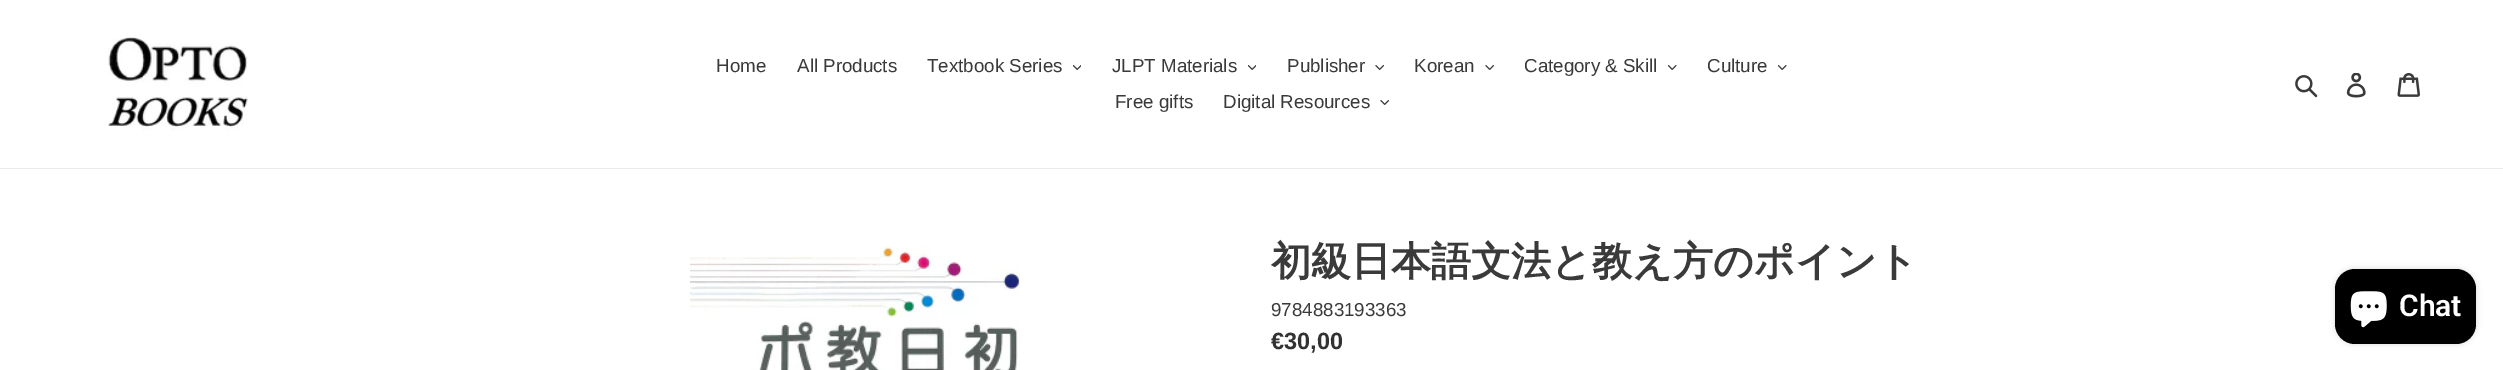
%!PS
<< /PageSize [2503 370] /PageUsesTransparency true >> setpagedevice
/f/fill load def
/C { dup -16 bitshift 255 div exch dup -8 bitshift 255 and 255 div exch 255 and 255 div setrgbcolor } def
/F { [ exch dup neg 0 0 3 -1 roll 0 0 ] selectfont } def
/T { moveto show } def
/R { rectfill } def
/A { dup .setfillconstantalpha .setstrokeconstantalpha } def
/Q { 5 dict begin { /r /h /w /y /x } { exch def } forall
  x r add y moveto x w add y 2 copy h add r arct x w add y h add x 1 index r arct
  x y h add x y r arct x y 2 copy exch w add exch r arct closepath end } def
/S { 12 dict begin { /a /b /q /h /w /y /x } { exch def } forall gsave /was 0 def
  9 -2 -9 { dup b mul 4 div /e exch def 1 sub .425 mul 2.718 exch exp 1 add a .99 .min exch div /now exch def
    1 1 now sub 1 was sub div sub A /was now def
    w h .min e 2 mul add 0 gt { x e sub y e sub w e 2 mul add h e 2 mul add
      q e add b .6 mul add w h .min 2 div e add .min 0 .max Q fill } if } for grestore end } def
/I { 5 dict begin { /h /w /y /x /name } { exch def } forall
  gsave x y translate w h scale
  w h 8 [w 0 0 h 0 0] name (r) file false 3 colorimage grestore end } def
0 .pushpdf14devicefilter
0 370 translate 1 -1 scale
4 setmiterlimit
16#FFFFFF C
0 0 2503 370 R
16#EBEBEB C
0 168 2503 1 R
(1.rgb) 108 37 140 94 I
/LiberationSans-Regular 18.75 F
16#3A3A3A C
(Home) 716 72 T
(All Products) 797 72 T
(Textbook Series) 927 72 T
(2.rgb) 1073 65 8 5 I
(JLPT Materials) 1112 72 T
(2.rgb) 1248 65 8 5 I
(Publisher) 1287 72 T
(3.rgb) 1375 65 9 5 I
(Korean) 1414 72 T
(3.rgb) 1485 65 9 5 I
(Category & Skill) 1524 72 T
(4.rgb) 1668 65 9 5 I
(Culture) 1707 72 T
(4.rgb) 1778 65 9 5 I
(Free gifts) 1115 108 T
(Digital Resources) 1223 108 T
(3.rgb) 1380 100 9 5 I
(5.rgb) 2295 75 23 23 I
(6.rgb) 2346 73 20 25 I
(7.rgb) 2397 73 23 24 I
(8.rgb) 690 246 330 124 I
/WenQuanYiZenHei-Bold 40 F
(初級日本語文法と教え方のポイント) 1271 275 T
/LiberationSans-Regular 18.75 F
(9784883193363) 1271 316 T
/LiberationSans-Bold 23.5 F
16#333232 C
(€30,00) 1271 349 T
16#000000 C
2335 269 141 75 20 3 .15 S
2335 269 141 75 20 Q f
(9.rgb) 2350 291 37 37 I
/Roboto-SemiBold 30 F
16#FFFFFF C
(Chat) 2399 316 T
.poppdf14devicefilter showpage
